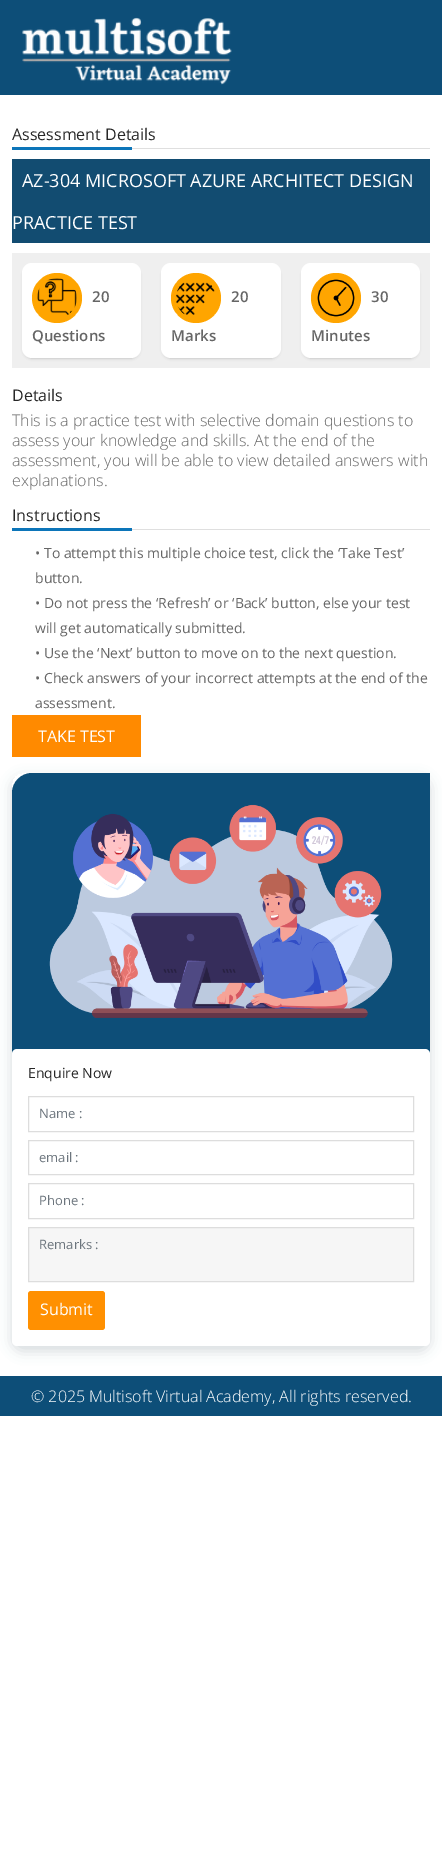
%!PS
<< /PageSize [442 1853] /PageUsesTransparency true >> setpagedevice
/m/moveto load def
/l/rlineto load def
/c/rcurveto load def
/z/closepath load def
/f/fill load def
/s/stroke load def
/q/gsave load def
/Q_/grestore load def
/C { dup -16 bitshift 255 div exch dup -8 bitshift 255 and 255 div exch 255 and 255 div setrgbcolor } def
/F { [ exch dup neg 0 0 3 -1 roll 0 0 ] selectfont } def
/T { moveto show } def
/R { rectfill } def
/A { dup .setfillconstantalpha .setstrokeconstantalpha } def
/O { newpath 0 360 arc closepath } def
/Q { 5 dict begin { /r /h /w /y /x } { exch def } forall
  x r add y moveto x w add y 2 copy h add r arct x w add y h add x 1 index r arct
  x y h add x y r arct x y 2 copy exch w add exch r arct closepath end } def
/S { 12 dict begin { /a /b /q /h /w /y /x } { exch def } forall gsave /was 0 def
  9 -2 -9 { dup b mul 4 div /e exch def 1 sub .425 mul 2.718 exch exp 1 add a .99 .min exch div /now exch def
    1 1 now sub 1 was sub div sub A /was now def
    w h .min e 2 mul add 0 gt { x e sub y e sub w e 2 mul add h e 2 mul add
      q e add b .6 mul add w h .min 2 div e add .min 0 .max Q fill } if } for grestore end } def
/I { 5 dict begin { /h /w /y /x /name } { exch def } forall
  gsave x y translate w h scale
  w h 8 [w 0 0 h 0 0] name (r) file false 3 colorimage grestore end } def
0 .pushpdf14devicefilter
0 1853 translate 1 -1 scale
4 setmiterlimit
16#FFFFFF C
0 0 442 1853 R
16#0D4E78 C
0 0 442 95 R
(1.rgb) 22 17 210 68 I
16#DFDFDF C
132 148 298 1 R
/OpenSans-Regular 16 F
16#272727 C
(Assessment Details) 12 140 T
16#0C75B9 C
12 147 120 3 R
16#124C71 C
12 159 418 84 R
/OpenSans-Regular 18 F
16#FFFFFF C
(AZ-304 MICROSOFT AZURE ARCHITECT DESIGN) 22 187 T
(PRACTICE TEST) 12 229 T
16#EFEFEF C
12 253 418 115 R
16#808080 C
25 268 113 89 7 2 1 S
16#FFFFFF C
22 263 119 95 10 Q f
16#FFA500 C
57 298 25 O f
(2.rgb) 37 278 40 37 I
/OpenSans-SemiBold 15 F
16#666666 C
(20) 92 302 T
(Questions) 32 341 T
16#808080 C
164 268 114 89 7 2 1 S
16#FFFFFF C
161 263 120 95 10 Q f
16#FFA500 C
196 298 25 O f
(3.rgb) 176 282 39 33 I
16#666666 C
(20) 231 302 T
(Marks) 171 341 T
16#808080 C
304 268 113 89 7 2 1 S
16#FFFFFF C
301 263 119 95 10 Q f
16#FFA500 C
336 298 25 O f
(4.rgb) 317 279 38 38 I
16#666666 C
(30) 371 302 T
(Minutes) 311 341 T
/OpenSans-Regular 16 F
16#272727 C
(Details) 12 401 T
/OpenSans-Light 16 F
16#666666 C
(This is a practice test with selective domain questions to) 12 426 T
(assess your knowledge and skills. At the end of the) 12 446 T
(assessment, you will be able to view detailed answers with) 12 466 T
(explanations.) 12 486 T
16#DFDFDF C
132 529 298 1 R
/OpenSans-Regular 16 F
16#272727 C
(Instructions) 12 521 T
16#0C75B9 C
12 528 120 3 R
/OpenSans-Regular 14 F
16#666666 C
(• To attempt this multiple choice test, click the ‘Take Test’) 35 558 T
(button.) 35 583 T
(• Do not press the ‘Refresh’ or ‘Back’ button, else your test) 35 608 T
(will get automatically submitted.) 35 633 T
(• Use the ‘Next’ button to move on to the next question.) 35 658 T
(• Check answers of your incorrect attempts at the end of the) 35 683 T
(assessment.) 35 708 T
16#FF8A00 C
12 715 129 42 R
/OpenSans-Regular 16 F
16#FFFFFF C
(TAKE TEST) 38 742 T
q
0 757 m 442 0 l 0 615 l -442 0 l z 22 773 m 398 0 l 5.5 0 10 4.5 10 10 c 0 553 l 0 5.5 -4.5 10 -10 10 c -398 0 l -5.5 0 -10 -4.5 -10 -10 c 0 -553 l 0 -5.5 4.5 -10 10 -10 c z eoclip newpath
16#3C4858 C
12 778 418 573 10 6.5 .2 S
Q_
16#0D4E78 C
32 773 m 398 0 l 0 298 l -418 0 l 0 -278 l 0 -11 9 -20 20 -20 c z f
(5.rgb) 49 804 344 214 I
16#FFFFFF C
12 1049 418 297 5 Q f
/OpenSans-Regular 14 F
16#272727 C
(Enquire Now) 28 1078 T
16#DDDDDD C
28.5 1096.5 385 35 rectstroke
/OpenSans-Regular 13 F
16#6C757D C
(Name :) 39 1118 T
16#DDDDDD C
28.5 1140.5 385 34 rectstroke
16#6C757D C
(email :) 39 1162 T
16#DDDDDD C
28.5 1183.5 385 35 rectstroke
16#6C757D C
(Phone :) 39 1205 T
16#F6F6F6 C
28.5 1227.5 m 385 0 l 0 54 l -385 0 l z q f Q_
16#DDDDDD C
s
16#6C757D C
(Remarks :) 39 1249 T
16#FF9001 C
28 1291 77 39 3 Q f
/OpenSans-Regular 16 F
16#FFFFFF C
(Submit) 40 1315 T
16#0D4E78 C
0 1376 442 40 R
/OpenSans-Light 16 F
16#FFFFFF C
(© 2025 Multisoft Virtual Academy, All rights reserved.) 31 1402 T
.poppdf14devicefilter showpage
